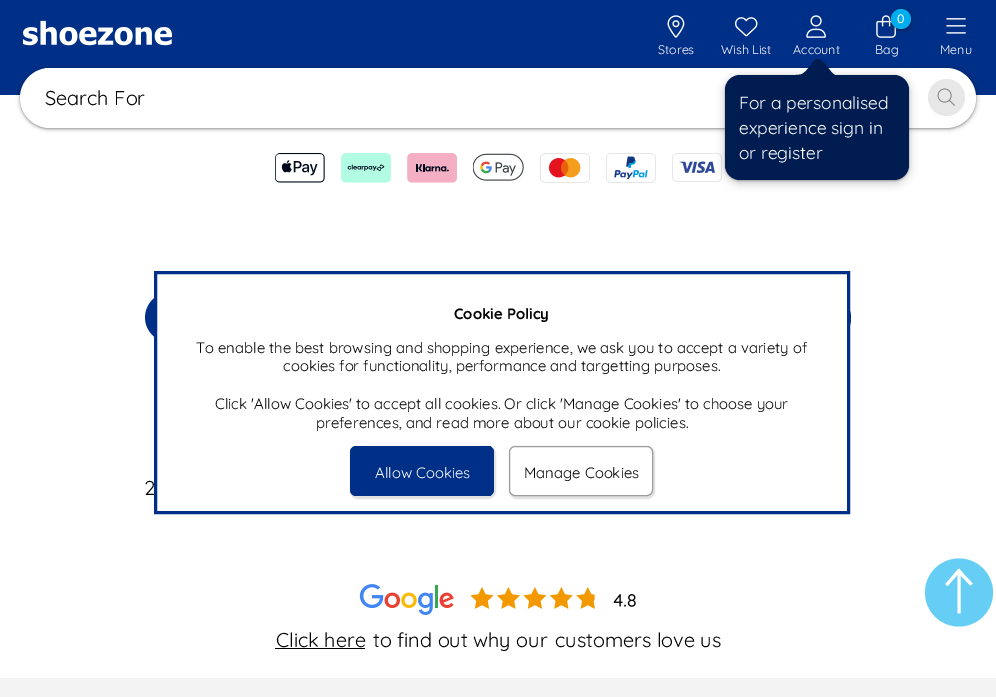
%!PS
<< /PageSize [996 697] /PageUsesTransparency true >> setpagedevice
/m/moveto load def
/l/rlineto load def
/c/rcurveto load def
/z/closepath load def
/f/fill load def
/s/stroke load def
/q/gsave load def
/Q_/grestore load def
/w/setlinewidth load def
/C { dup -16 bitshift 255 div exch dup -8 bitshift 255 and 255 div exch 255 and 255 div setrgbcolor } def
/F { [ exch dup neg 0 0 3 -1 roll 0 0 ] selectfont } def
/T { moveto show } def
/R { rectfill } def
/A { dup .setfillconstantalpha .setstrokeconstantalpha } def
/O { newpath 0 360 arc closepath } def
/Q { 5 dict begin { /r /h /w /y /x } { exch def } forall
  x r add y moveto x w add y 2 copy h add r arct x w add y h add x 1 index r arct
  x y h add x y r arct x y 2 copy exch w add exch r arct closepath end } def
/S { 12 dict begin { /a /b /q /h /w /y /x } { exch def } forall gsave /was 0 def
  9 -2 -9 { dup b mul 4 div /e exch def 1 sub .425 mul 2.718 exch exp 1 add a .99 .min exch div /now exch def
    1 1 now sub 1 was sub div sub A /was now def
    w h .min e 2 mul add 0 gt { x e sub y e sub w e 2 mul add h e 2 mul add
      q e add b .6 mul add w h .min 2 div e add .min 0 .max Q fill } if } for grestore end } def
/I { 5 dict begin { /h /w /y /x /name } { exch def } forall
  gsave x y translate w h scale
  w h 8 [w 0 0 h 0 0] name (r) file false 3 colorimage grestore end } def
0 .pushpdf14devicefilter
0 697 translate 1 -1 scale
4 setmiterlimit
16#FFFFFF C
0 0 996 697 R
16#002F87 C
0 0 996 95 R
(1.rgb) 22 20 150 26 I
(2.rgb) 667 15 18 23 I
/Quicksand-Light 12.5 F
16#FFFFFF C
(Stores) 658 54 T
(3.rgb) 735 17 23 20 I
(Wish List) 721 54 T
(4.rgb) 876 15 20 23 I
16#000000 C
891 10 20 20 10 1 .3 S
890 9 23 22 11 2 .15 S
16#00AEEF C
901 19 10 O f
/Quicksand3-Light 12.5 F
16#FFFFFF C
(0) 897 23 T
/Quicksand-Light 12.5 F
(Bag) 875 54 T
(5.rgb) 806 15 20 23 I
(Account) 793 54 T
16#000000 C
20 69 956 60 30 1 .3 S
19 68 959 62 31 2 .15 S
16#FFFFFF C
20 68 956 60 30 Q f
(14.rgb) 672 153 50 29 I
16#000000 C
725 76 184 105 15 1 .3 S
723 75 188 110 18 4 .15 S
16#001C51 C
725 75 184 105 15 Q f
q
789 59 46 17 rectclip
835 75 m -5 -2 -13 -19 -19 -16 c -2 1 -4 4 -5 6 c -9 11 -9 10 -22 10 c eofill
Q_
/Quicksand-Light 17.5 F
16#FFFFFF C
(For a personalised) 739 109 T
(experience sign in) 739 134 T
(or register) 739 159 T
(6.rgb) 946 18 20 16 I
/Quicksand-Light 12.5 F
(Menu) 940 54 T
45 68 5 60 R
/Quicksand-Light 20 F
16#000000 C
(Search For) 45 105 T
16#E7E7E7 C
946.5 97.5 18.5 O f
(7.rgb) 937 88 18 18 I
16#002F87 C
826 318 25 O f
16#FFFFFF C
801 293 46 50 R
16#000000 C
(2) 144 495 T
16#002F87 C
3 w
155.5 272.5 693 240 rectstroke
/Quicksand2-Light 15 F
16#000000 C
(Cookie Policy) 454 319 T
/Quicksand-Light 15 F
(To enable the best browsing and shopping experience, we ask you to accept a variety of) 196 353 T
(cookies for functionality, performance and targetting purposes.) 283 371 T
(Click 'Allow Cookies' to accept all cookies. Or click 'Manage Cookies' to choose your) 215 409 T
(preferences, and read more about our cookie policies.) 316 428 T
16#E0E0E0 C
350 446 146 53 8 .5 1 S
16#002F87 C
350 446 144 50 6 Q f
354 446 137 1 R
354 495 137 1 R
16#FFFFFF C
(Allow Cookies) 375 478 T
16#E0E0E0 C
509 446 146 53 8 .5 1 S
16#FFFFFF C
509.5 446.5 143 49 5.5 Q q f Q_
16#9D9D9D C
1 w
s
16#000000 C
(Manage Cookies) 524 478 T
(8.rgb) 275 153 50 30 I
(9.rgb) 341 153 50 30 I
(10.rgb) 407 153 50 30 I
(11.rgb) 473 153 51 28 I
(12.rgb) 540 153 50 30 I
(13.rgb) 606 153 50 30 I
(15.rgb) 145 298 9 39 I
(16.rgb) 359 584 277 31 I
/Quicksand-Light 20 F
(Click here) 276 647 T
275 648 90 1 R
(to find out why our) 373 647 T
(customers love us) 555 647 T
16#66CEF5 C
959 592.5 34 O f
16#FFFFFF C
3 w
959 613.5 m 0 -42 l 959.5 570 m -13 15 l s
3.1 w
958 570.5 m 13.5 14 l s
959 574.5 m 5 0 l -5 -6 l -5.5 6 l z f
16#F3F3F3 C
0 678 996 19 R
.poppdf14devicefilter showpage
